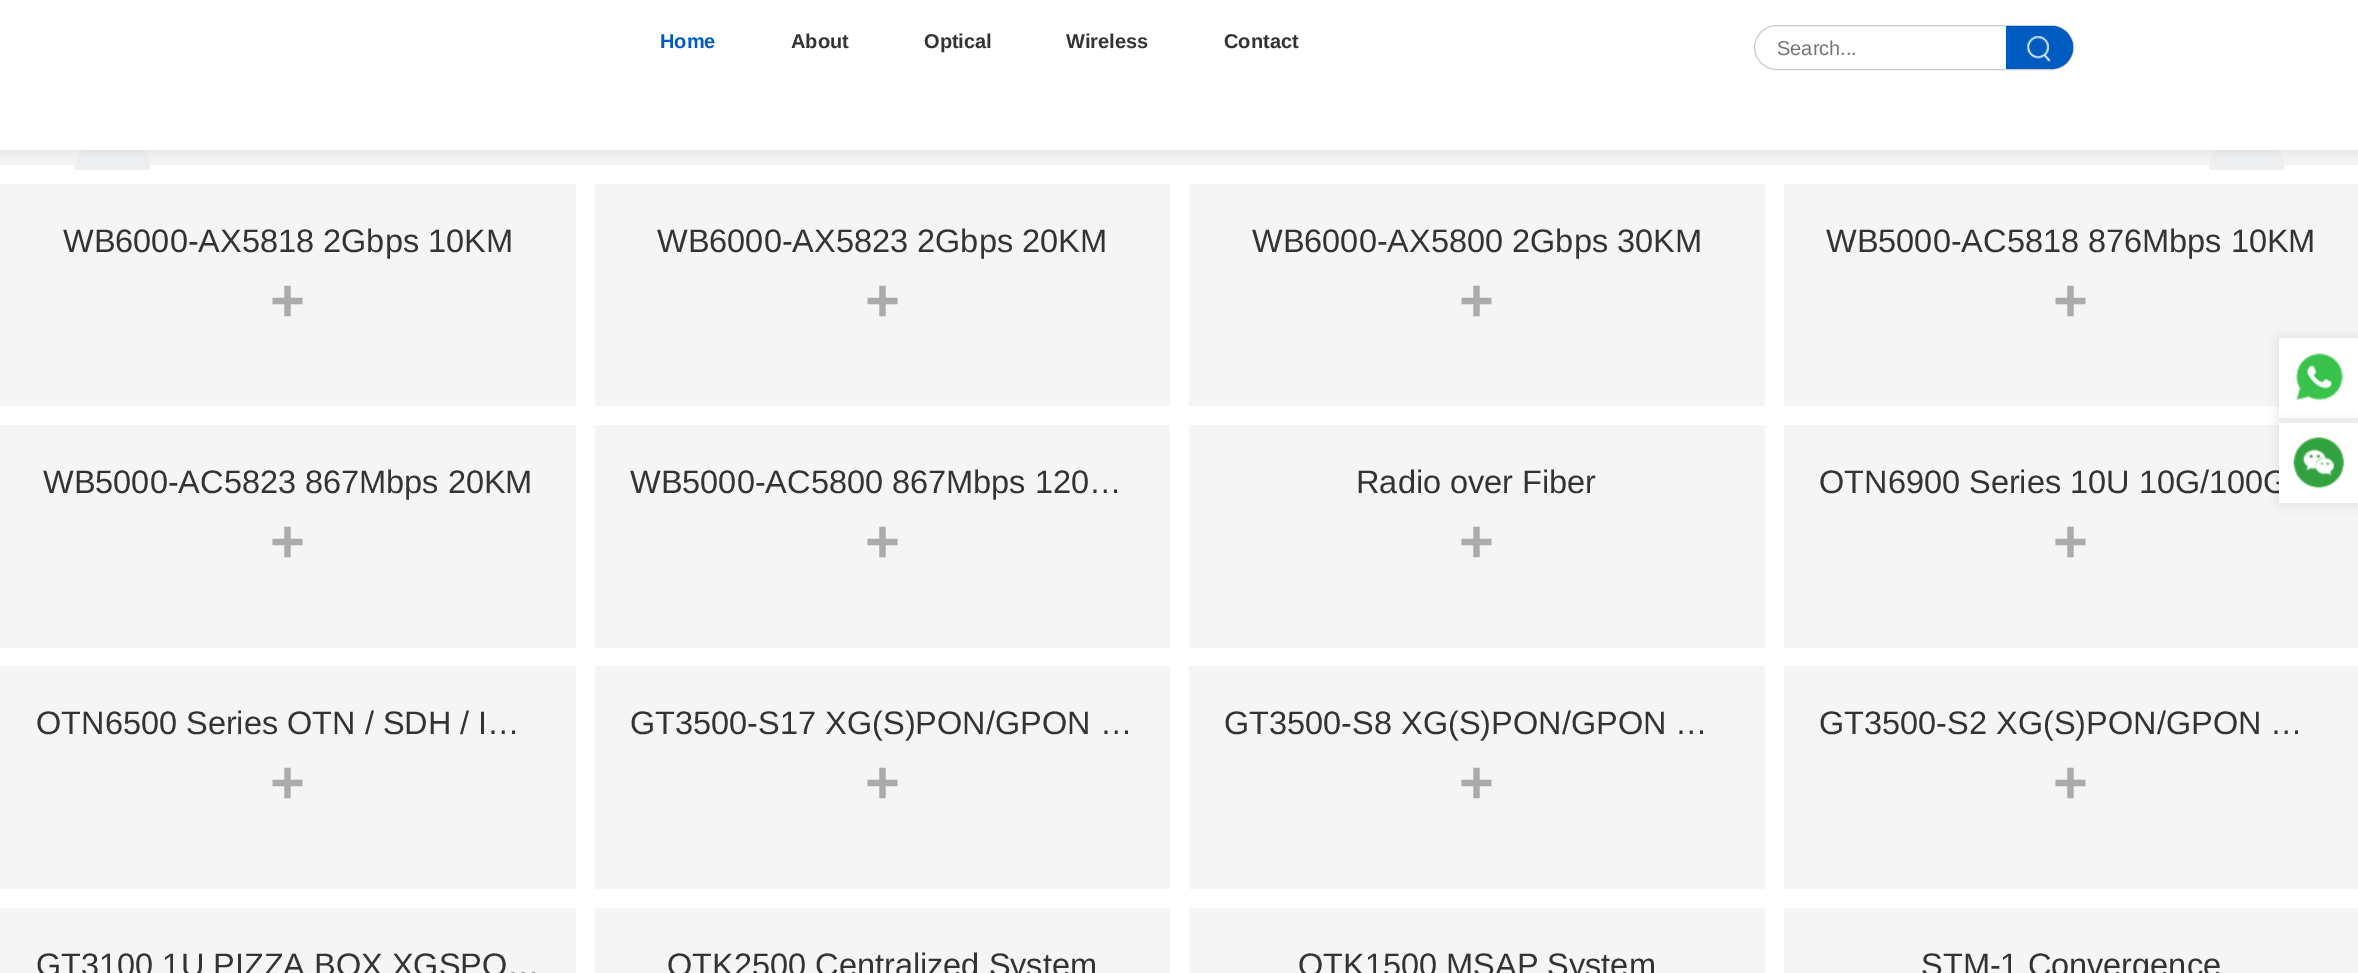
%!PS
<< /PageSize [2358 973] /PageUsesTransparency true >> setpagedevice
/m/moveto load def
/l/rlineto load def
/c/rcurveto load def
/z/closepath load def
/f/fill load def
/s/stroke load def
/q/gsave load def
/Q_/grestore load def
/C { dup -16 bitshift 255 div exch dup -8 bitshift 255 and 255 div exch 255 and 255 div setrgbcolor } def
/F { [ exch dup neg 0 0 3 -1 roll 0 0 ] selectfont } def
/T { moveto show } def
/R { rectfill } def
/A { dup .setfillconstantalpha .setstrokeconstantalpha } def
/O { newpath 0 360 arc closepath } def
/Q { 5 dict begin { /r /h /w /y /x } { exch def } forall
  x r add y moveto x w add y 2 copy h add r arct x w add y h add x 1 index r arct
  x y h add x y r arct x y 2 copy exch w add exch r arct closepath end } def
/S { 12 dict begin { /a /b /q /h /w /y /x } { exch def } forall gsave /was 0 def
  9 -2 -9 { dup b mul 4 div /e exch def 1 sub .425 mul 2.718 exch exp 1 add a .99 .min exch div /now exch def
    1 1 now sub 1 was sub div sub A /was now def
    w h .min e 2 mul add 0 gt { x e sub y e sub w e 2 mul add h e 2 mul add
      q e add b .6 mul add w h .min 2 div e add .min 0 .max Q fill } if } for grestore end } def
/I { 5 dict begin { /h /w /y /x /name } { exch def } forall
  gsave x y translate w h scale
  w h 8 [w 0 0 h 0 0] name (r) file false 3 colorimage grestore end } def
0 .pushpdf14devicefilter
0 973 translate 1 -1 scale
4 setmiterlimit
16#F4F4F4 C
0 0 2358 973 R
16#FFFFFF C
0 165 2358 808 R
16#F5F5F5 C
0 184 576 222 R
q
0 150 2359 20 rectclip
16#EEEFF0 C
112.5 170.5 37.5 O f
Q_
1784 184 574 222 R
q
0 150 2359 20 rectclip
16#EEEFF0 C
2246.5 170.5 37.5 O f
Q_
16#000000 C
0 0 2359 150 0 6 .1 S
16#FFFFFF C
0 0 2358 150 R
/LiberationSans-Bold 20 F
16#005BC1 C
(Home) 660 48 T
16#333333 C
(About) 791 48 T
(Optical) 924 48 T
(Wireless) 1066 48 T
(Contact) 1224 48 T
16#CCCCCC C
1754.5 25.5 319 44 22 Q s
/LiberationSans-Regular 20 F
16#757575 C
(Search...) 1777 55 T
16#005BC1 C
2006 26 m 45.5 0 l 12 0 21.5 9.5 21.5 21.5 c 0 12 -9.5 21.5 -21.5 21.5 c -45.5 0 l z f
(1.rgb) 2027 36 24 26 I
2006 26 m 0 43 l 1 0 l 0 -42 l 51 0 l -6 -1 l z 2072 41 m 1 4 1 9 0 13 c z eofill
/LiberationSans-Regular 32.5 F
16#333333 C
(WB6000-AX5818 2Gbps 10KM) 63 252 T
/LiberationSans-Bold 60 F
16#ABABAB C
(+) 270 321 T
16#F5F5F5 C
595 184 575 222 R
/LiberationSans-Regular 32.5 F
16#333333 C
(WB6000-AX5823 2Gbps 20KM) 657 252 T
/LiberationSans-Bold 60 F
16#ABABAB C
(+) 865 321 T
16#F5F5F5 C
1189 184 576 222 R
/LiberationSans-Regular 32.5 F
16#333333 C
(WB6000-AX5800 2Gbps 30KM) 1252 252 T
/LiberationSans-Bold 60 F
16#ABABAB C
(+) 1459 321 T
/LiberationSans-Regular 32.5 F
16#333333 C
(WB5000-AC5818 876Mbps 10KM) 1826 252 T
/LiberationSans-Bold 60 F
16#ABABAB C
(+) 2053 321 T
16#F5F5F5 C
0 425 576 223 R
/LiberationSans-Regular 32.5 F
16#333333 C
(WB5000-AC5823 867Mbps 20KM) 43 493 T
/LiberationSans-Bold 60 F
16#ABABAB C
(+) 270 562 T
16#F5F5F5 C
595 425 575 223 R
/LiberationSans-Regular 32.5 F
16#333333 C
(WB5000-AC5800 867Mbps 120…) 630 493 T
/LiberationSans-Bold 60 F
16#ABABAB C
(+) 865 562 T
16#F5F5F5 C
1189 425 576 223 R
/LiberationSans-Regular 32.5 F
16#333333 C
(Radio over Fiber) 1356 493 T
/LiberationSans-Bold 60 F
16#ABABAB C
(+) 1459 562 T
16#F5F5F5 C
1784 425 574 223 R
/LiberationSans-Regular 32.5 F
16#333333 C
(OTN6900 Series 10U 10G/100G) 1819 493 T
/LiberationSans-Bold 60 F
16#ABABAB C
(+) 2053 562 T
16#F5F5F5 C
0 666 576 223 R
/LiberationSans-Regular 32.5 F
16#333333 C
(OTN6500 Series OTN / SDH / I…) 36 734 T
/LiberationSans-Bold 60 F
16#ABABAB C
(+) 270 803 T
16#F5F5F5 C
595 666 575 223 R
/LiberationSans-Regular 32.5 F
16#333333 C
(GT3500-S17 XG\(S\)PON/GPON …) 630 734 T
/LiberationSans-Bold 60 F
16#ABABAB C
(+) 865 803 T
16#F5F5F5 C
1189 666 576 223 R
/LiberationSans-Regular 32.5 F
16#333333 C
(GT3500-S8 XG\(S\)PON/GPON …) 1224 734 T
/LiberationSans-Bold 60 F
16#ABABAB C
(+) 1459 803 T
16#F5F5F5 C
1784 666 574 223 R
/LiberationSans-Regular 32.5 F
16#333333 C
(GT3500-S2 XG\(S\)PON/GPON …) 1819 734 T
/LiberationSans-Bold 60 F
16#ABABAB C
(+) 2053 803 T
16#F5F5F5 C
0 908 576 65 R
/LiberationSans-Regular 32.5 F
16#333333 C
(GT3100 1U PIZZA BOX XGSPO…) 36 976 T
16#F5F5F5 C
595 908 575 65 R
16#333333 C
(OTK2500 Centralized System) 667 976 T
16#F5F5F5 C
1189 908 576 65 R
16#333333 C
(OTK1500 MSAP System) 1298 976 T
16#F5F5F5 C
1784 908 574 65 R
16#333333 C
(STM-1 Convergence) 1921 976 T
16#000000 C
2279 338 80 80 0 6 .1 S
16#FFFFFF C
2279 338 79 80 R
(2.rgb) 2295 353 48 48 I
16#000000 C
2279 423 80 80 0 6 .1 S
16#FFFFFF C
2279 423 79 80 R
(3.rgb) 2293 437 51 52 I
.poppdf14devicefilter showpage
